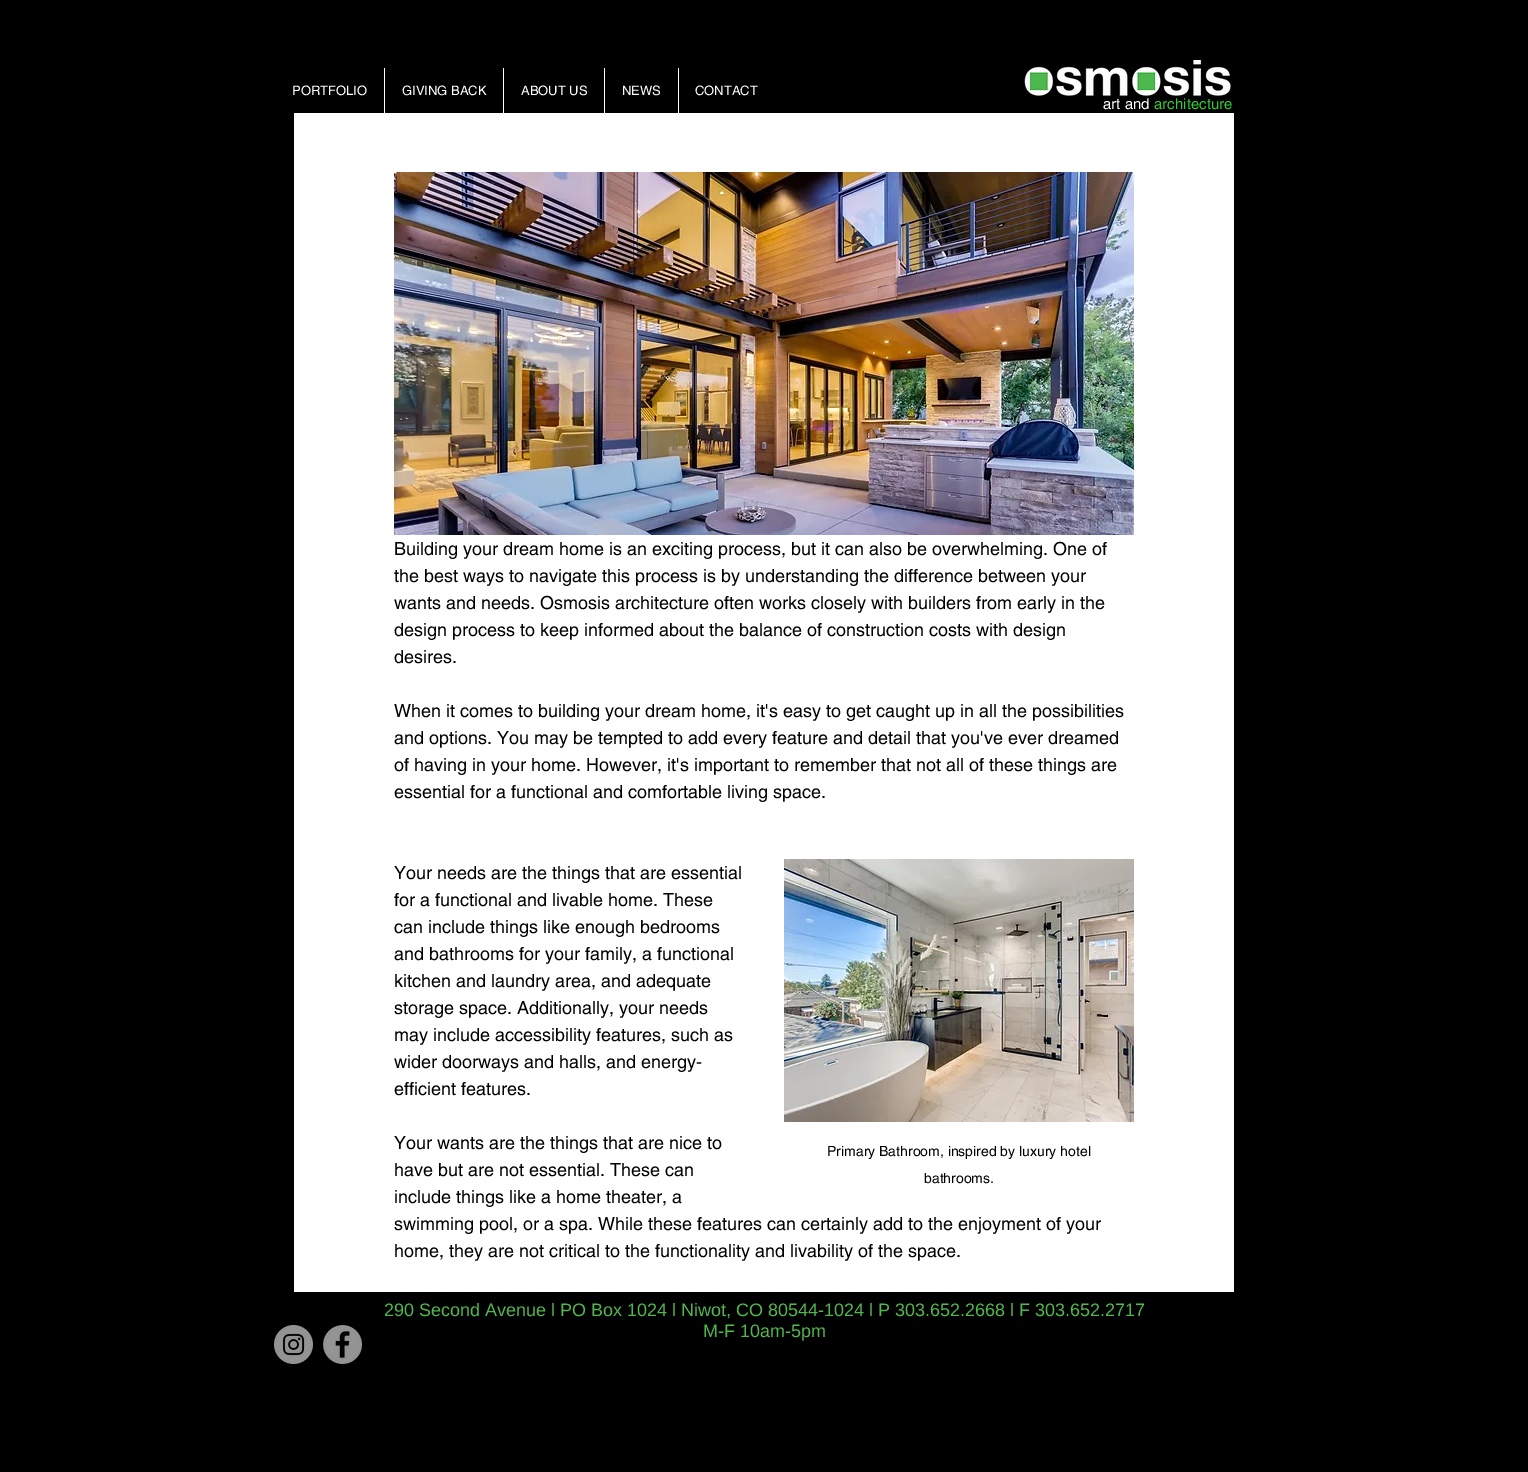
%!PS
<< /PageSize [1528 1472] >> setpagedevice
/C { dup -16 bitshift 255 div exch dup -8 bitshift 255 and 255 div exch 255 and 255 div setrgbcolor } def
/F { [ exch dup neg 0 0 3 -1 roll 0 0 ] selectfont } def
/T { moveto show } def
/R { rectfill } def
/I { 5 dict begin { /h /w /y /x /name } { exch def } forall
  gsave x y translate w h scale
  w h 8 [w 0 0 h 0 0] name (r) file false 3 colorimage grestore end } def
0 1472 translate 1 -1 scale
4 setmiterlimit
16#000000 C
0 0 1528 1472 R
/helvetica-Regular 13 F
16#FFFFFF C
(PORTFOLIO) 292 95 T
384 68 1 45 R
(GIVING BACK) 402 95 T
503 68 1 45 R
(ABOUT US) 521 95 T
604 68 1 45 R
(NEWS) 622 95 T
678 68 1 45 R
(CONTACT) 695 95 T
(1.rgb) 1024 60 207 36 I
/helvetica-Regular 15 F
(art and) 1103 109 T
16#31CC31 C
(architecture) 1154 109 T
16#FFFFFF C
294 113 940 1179 R
(2.rgb) 394 172 740 363 I
/helvetica-Regular 18 F
16#000000 C
(Building your dream home is an exciting process, but it can also be overwhelming. One of) 394 555 T
(the best ways to navigate this process is by understanding the difference between your) 394 582 T
(wants and needs. Osmosis architecture often works closely with builders from early in the) 394 609 T
(design process to keep informed about the balance of construction costs with design) 394 636 T
(desires.) 394 663 T
(When it comes to building your dream home, it's easy to get caught up in all the possibilities) 394 717 T
(and options. You may be tempted to add every feature and detail that you've ever dreamed) 394 744 T
(of having in your home. However, it's important to remember that not all of these things are) 394 771 T
(essential for a functional and comfortable living space.) 394 798 T
(Your needs are the things that are essential) 394 879 T
(for a functional and livable home. These) 394 906 T
(can include things like enough bedrooms) 394 933 T
(and bathrooms for your family, a functional) 394 960 T
(kitchen and laundry area, and adequate) 394 987 T
(storage space. Additionally, your needs) 394 1014 T
(may include accessibility features, such as) 394 1041 T
(wider doorways and halls, and energy-) 394 1068 T
(efficient features.) 394 1095 T
(Your wants are the things that are nice to) 394 1149 T
(have but are not essential. These can) 394 1176 T
(include things like a home theater, a) 394 1203 T
(swimming pool, or a spa. While these features can certainly add to the enjoyment of your) 394 1230 T
(home, they are not critical to the functionality and livability of the space.) 394 1257 T
(3.rgb) 784 859 350 263 I
/helvetica-Regular 14 F
(Primary Bathroom, inspired by luxury hotel) 827 1156 T
(bathrooms.) 924 1183 T
(4.rgb) 274 1325 39 39 I
(5.rgb) 323 1325 39 39 I
/LiberationSans-Regular 18 F
16#50B84D C
(290 Second Avenue l PO Box 1024 l Niwot, CO 80544-1024 l P 303.652.2668 l F 303.652.2717) 384 1316 T
(M-F 10am-5pm) 703 1337 T
showpage
